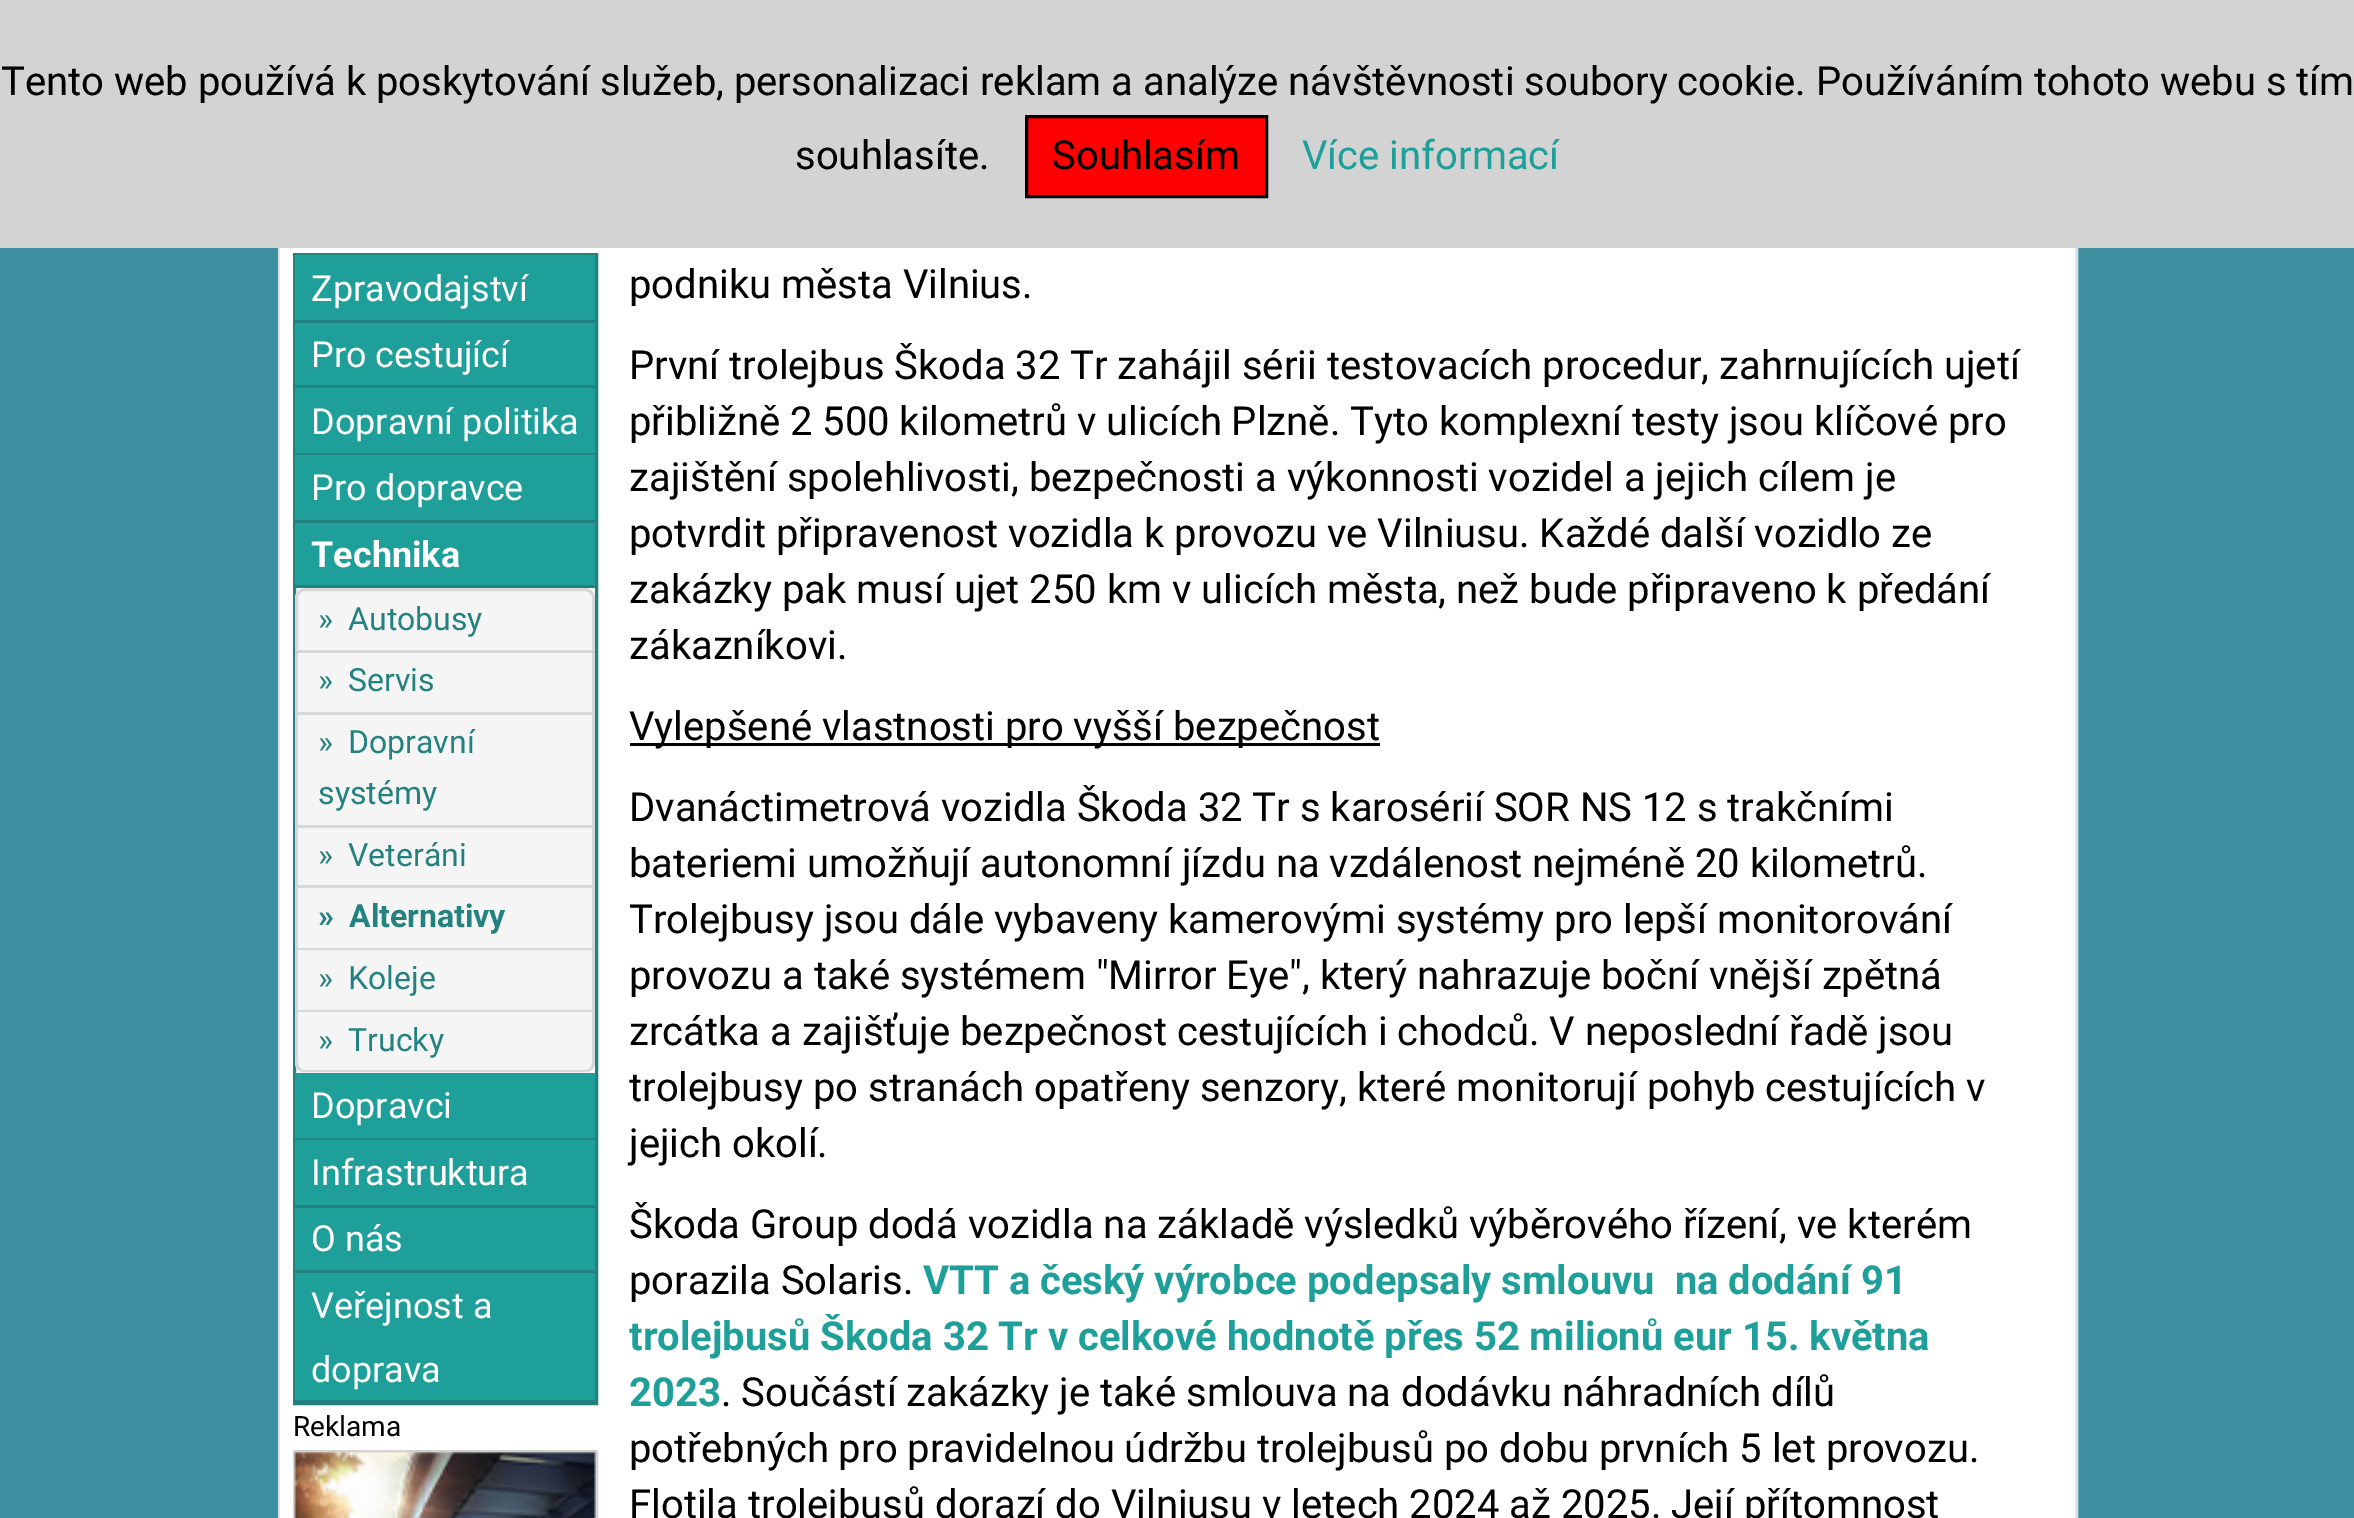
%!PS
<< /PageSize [2354 1518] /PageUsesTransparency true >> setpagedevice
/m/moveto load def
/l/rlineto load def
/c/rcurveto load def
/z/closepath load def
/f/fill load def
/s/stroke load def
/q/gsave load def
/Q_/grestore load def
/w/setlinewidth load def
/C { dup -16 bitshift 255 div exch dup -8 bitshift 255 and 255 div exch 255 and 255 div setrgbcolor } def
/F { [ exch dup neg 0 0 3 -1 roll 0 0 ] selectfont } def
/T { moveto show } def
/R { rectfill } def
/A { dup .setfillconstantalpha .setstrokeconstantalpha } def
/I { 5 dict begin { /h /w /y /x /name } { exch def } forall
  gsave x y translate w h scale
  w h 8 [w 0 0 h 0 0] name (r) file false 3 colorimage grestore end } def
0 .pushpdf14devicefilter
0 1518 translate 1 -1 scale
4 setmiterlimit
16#3E8F9F C
0 0 2354 1518 R
16#FFFFFF C
580 248 1495 1270 R
16#DEE2E6 C
3 w
279.5 -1.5 1797 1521 rectstroke
16#D3D3D3 C
0 0 2354 248 R
/Roboto-Regular 40 F
16#000000 C
(Tento web používá k poskytování služeb, personalizaci reklam a analýze návštěvnosti soubory cookie. Používáním tohoto webu s tím) 1 95 T
(souhlasíte.) 795 169 T
16#FF0000 C
1026.5 116.5 m 240 0 l 0 80 l -240 0 l z q f Q_
16#000000 C
s
(Souhlasím) 1052 169 T
16#1E9F9A C
(Více informací) 1302 169 T
16#FFFFFF C
280 248 300 1270 R
16#23827F C
294.5 254.5 302 1149 rectstroke
16#1E9F9A C
295 255 300 65 R
16#23827F C
295 320 300 3 R
/Roboto-Regular 36 F
16#FFFFFF C
(Zpravodajství) 311 301 T
16#1E9F9A C
295 323 300 62 R
16#23827F C
295 385 300 3 R
16#FFFFFF C
(Pro cestující) 311 367 T
16#1E9F9A C
295 388 300 65 R
16#23827F C
295 453 300 2 R
16#FFFFFF C
(Dopravní politika) 311 434 T
16#1E9F9A C
295 455 300 65 R
16#23827F C
295 520 300 3 R
16#FFFFFF C
(Pro dopravce) 311 500 T
16#1E9F9A C
295 523 300 62 R
16#23827F C
295 585 300 3 R
/Roboto-Bold 36 F
16#FFFFFF C
(Technika) 311 567 T
16#F5F5F5 C
305 588 m 280 0 l 5.5 0 10 4.5 10 10 c 0 55 l -300 0 l 0 -55 l 0 -5.5 4.5 -10 10 -10 c z f
0.12 A
16#000000 C
305 589.5 m 280 0 l 4.5 0 8.5 4 8.5 8.5 c 0 53.5 l -297 0 l 0 -53.5 l 0 -4.5 4 -8.5 8.5 -8.5 c z s
/Roboto-Regular 32 F
1 A
16#23827F C
(») 318 630 T
(Autobusy) 348 630 T
16#F5F5F5 C
295 653 300 360 R
0.12 A
16#000000 C
595 652 m 0 63 l -3 -3 l 0 -60 l z f
595 715 m -300 0 l 3 -3 l 294 0 l z f
295 715 m 0 -63 l 3 0 l 0 60 l z f
1 A
16#23827F C
(») 318 691 T
(Servis) 348 691 T
16#D6D6D6 C
595 715 m 0 113 l -3 -3 l 0 -110 l z f
0.12 A
16#000000 C
595 828 m -300 0 l 3 -3 l 294 0 l z f
295 828 m 0 -113 l 3 0 l 0 110 l z f
1 A
16#23827F C
(») 318 753 T
(Dopravní) 348 753 T
(systémy) 318 804 T
16#D6D6D6 C
595 828 m 0 60 l -3 -3 l 0 -57 l z f
0.12 A
16#000000 C
595 888 m -300 0 l 3 -3 l 294 0 l z f
295 888 m 0 -60 l 3 0 l 0 57 l z f
1 A
16#23827F C
(») 318 866 T
(Veteráni) 348 866 T
16#D6D6D6 C
595 888 m 0 62 l -3 -2 l 0 -60 l z f
0.12 A
16#000000 C
595 950 m -300 0 l 3 -2 l 294 0 l z f
295 950 m 0 -62 l 3 0 l 0 60 l z f
/Roboto-Bold 32 F
1 A
16#23827F C
(») 318 927 T
(Alternativy) 349 927 T
16#D6D6D6 C
595 950 m 0 62 l -3 -2 l 0 -60 l z f
0.12 A
16#000000 C
595 1012 m -300 0 l 3 -2 l 294 0 l z f
295 1012 m 0 -62 l 3 0 l 0 60 l z f
/Roboto-Regular 32 F
1 A
16#23827F C
(») 318 989 T
(Koleje) 348 989 T
16#F5F5F5 C
295 1013 m 300 0 l 0 50 l 0 5.5 -4.5 10 -10 10 c -280 0 l -5.5 0 -10 -4.5 -10 -10 c z f
0.12 A
16#000000 C
295 1012 m 300 0 l 0 50 l 0 6 -4 10 -10 10 c -280 0 l -6 0 -10 -4 -10 -10 c z 298 1012 m 294 0 l 0 50 l 0 5 -3 8 -7 8 c -280 0 l -4 0 -7 -3 -7 -8 c z eofill
1 A
16#23827F C
(») 318 1051 T
(Trucky) 348 1051 T
16#1E9F9A C
295 1073 300 65 R
16#23827F C
295 1138 300 2 R
/Roboto-Regular 36 F
16#FFFFFF C
(Dopravci) 311 1118 T
16#1E9F9A C
295 1140 300 65 R
16#23827F C
295 1205 300 3 R
16#FFFFFF C
(Infrastruktura) 311 1185 T
16#1E9F9A C
295 1208 300 62 R
16#23827F C
295 1270 300 3 R
16#FFFFFF C
(O nás) 311 1251 T
16#1E9F9A C
295 1273 300 127 R
16#23827F C
295 1400 300 2 R
16#FFFFFF C
(Veřejnost a) 311 1318 T
(doprava) 311 1382 T
/Roboto-Regular 28 F
16#000000 C
(Reklama) 293 1436 T
16#D3D3D3 C
294.5 1451.5 302 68 rectstroke
(1.rgb) 294 1451 302 67 I
/Roboto-Regular 40 F
16#000000 C
(podniku města Vilnius.) 629 298 T
(První trolejbus Škoda 32 Tr zahájil sérii testovacích procedur, zahrnujících ujetí) 629 379 T
(přibližně 2 500 kilometrů v ulicích Plzně. Tyto komplexní testy jsou klíčové pro) 629 435 T
(zajištění spolehlivosti, bezpečnosti a výkonnosti vozidel a jejich cílem je) 629 491 T
(potvrdit připravenost vozidla k provozu ve Vilniusu. Každé další vozidlo ze) 629 547 T
(zakázky pak musí ujet 250 km v ulicích města, než bude připraveno k předání) 629 603 T
(zákazníkovi.) 629 659 T
630 743 750 3 R
(Vylepšené vlastnosti pro vyšší bezpečnost) 629 740 T
(Dvanáctimetrová vozidla Škoda 32 Tr s karosérií SOR NS 12 s trakčními) 629 821 T
(bateriemi umožňují autonomní jízdu na vzdálenost nejméně 20 kilometrů.) 629 877 T
(Trolejbusy jsou dále vybaveny kamerovými systémy pro lepší monitorování) 629 933 T
(provozu a také systémem "Mirror Eye", který nahrazuje boční vnější zpětná) 629 989 T
(zrcátka a zajišťuje bezpečnost cestujících i chodců. V neposlední řadě jsou) 629 1045 T
(trolejbusy po stranách opatřeny senzory, které monitorují pohyb cestujících v) 629 1101 T
(jejich okolí.) 629 1157 T
(Škoda Group dodá vozidla na základě výsledků výběrového řízení, ve kterém) 629 1238 T
(porazila Solaris.) 629 1294 T
/Roboto-Bold 40 F
16#1E9F9A C
(VTT a český výrobce podepsaly smlouvu  na dodání 91) 923 1294 T
(trolejbusů Škoda 32 Tr v celkové hodnotě přes 52 milionů eur 15. května) 629 1350 T
(2023) 629 1406 T
/Roboto-Regular 40 F
16#000000 C
(. Součástí zakázky je také smlouva na dodávku náhradních dílů) 721 1406 T
(potřebných pro pravidelnou údržbu trolejbusů po dobu prvních 5 let provozu.) 629 1462 T
(Flotila trolejbusů dorazí do Vilniusu v letech 2024 až 2025. Její přítomnost) 629 1518 T
.poppdf14devicefilter showpage
